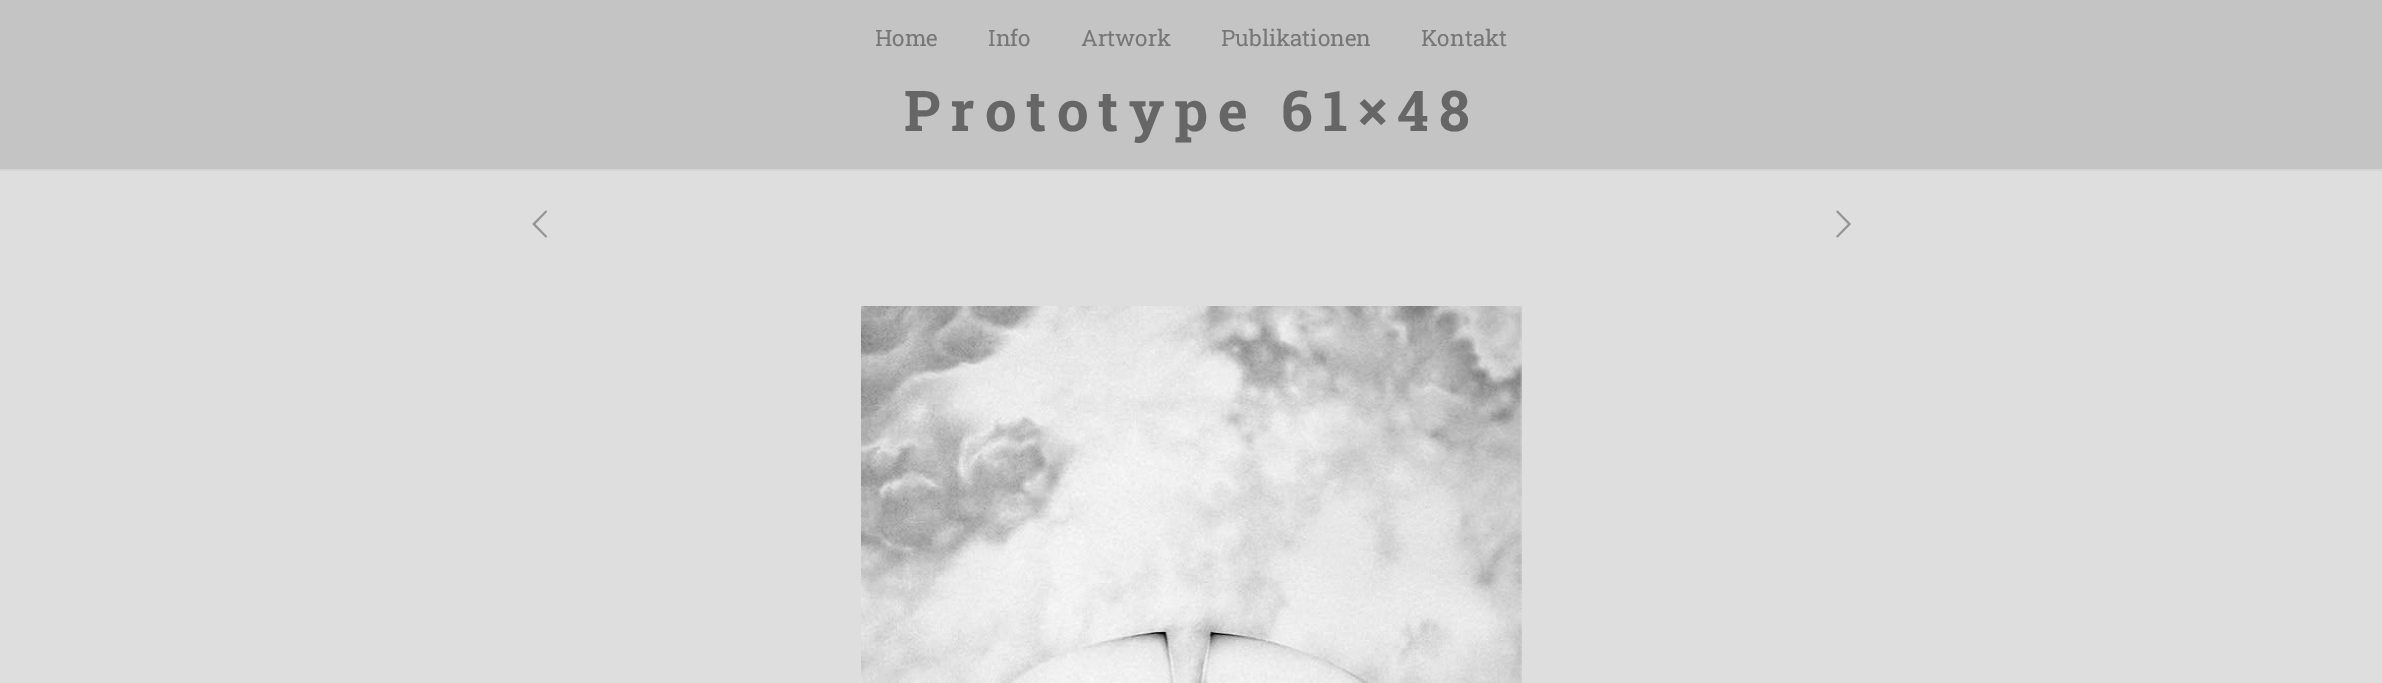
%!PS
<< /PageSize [2382 683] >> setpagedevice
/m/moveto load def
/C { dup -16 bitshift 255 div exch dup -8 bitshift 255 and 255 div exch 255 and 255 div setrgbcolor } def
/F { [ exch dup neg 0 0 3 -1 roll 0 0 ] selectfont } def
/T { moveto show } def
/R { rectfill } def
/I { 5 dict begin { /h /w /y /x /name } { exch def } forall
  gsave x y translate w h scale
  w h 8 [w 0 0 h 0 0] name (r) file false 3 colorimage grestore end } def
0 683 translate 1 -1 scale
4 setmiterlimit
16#DEDEDE C
0 0 2382 683 R
16#C4C4C4 C
0 0 2382 169 R
/RobotoSlab-Regular 22.5 F
16#777777 C
(Home) 875 46 T
(Info) 988 46 T
(Artwork) 1081 46 T
(Publikationen) 1221 46 T
(Kontakt) 1421 46 T
/RobotoSlab-Bold 56.25 F
16#666666 C
904 131 m 10 0 (Prototype 61×48) ashow
(1.rgb) 0 169 2382 2 I
(2.rgb) 532 210 15 28 I
(3.rgb) 1836 210 15 28 I
(4.rgb) 861 306 661 377 I
showpage
